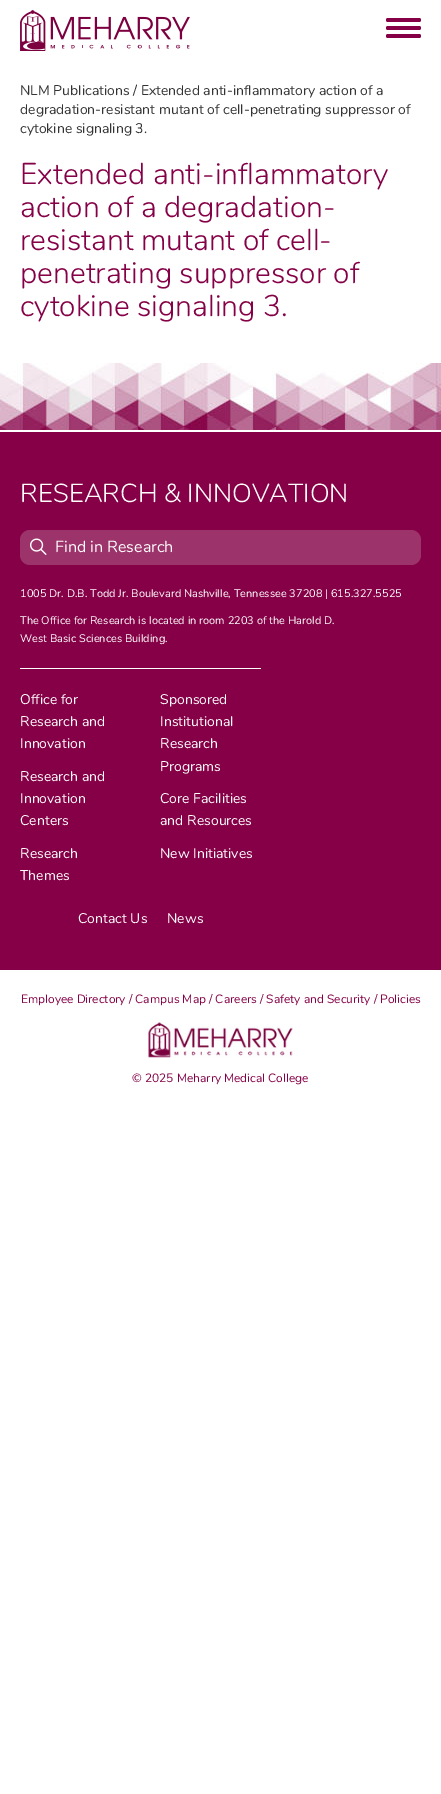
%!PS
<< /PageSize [441 1794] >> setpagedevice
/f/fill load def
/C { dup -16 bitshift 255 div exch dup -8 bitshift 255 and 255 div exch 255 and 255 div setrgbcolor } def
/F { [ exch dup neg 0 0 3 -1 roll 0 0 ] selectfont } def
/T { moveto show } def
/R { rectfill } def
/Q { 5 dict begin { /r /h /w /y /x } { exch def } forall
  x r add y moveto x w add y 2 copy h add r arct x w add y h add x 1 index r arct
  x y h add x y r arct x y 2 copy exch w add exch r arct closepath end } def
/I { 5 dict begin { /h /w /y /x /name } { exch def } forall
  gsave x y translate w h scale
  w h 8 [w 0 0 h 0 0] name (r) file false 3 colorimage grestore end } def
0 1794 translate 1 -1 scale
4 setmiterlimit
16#FFFFFF C
0 0 441 1794 R
(1.rgb) 20 10 170 41 I
16#850046 C
386 18 35 4 2 Q f
386 26 35 4 2 Q f
386 34 35 4 2 Q f
/Nunito-Regular 14 F
16#333333 C
(NLM Publications / Extended anti-inflammatory action of a) 20 95 T
(degradation-resistant mutant of cell-penetrating suppressor of) 20 114 T
(cytokine signaling 3.) 20 133 T
/Nunito-Light 30 F
16#850046 C
(Extended anti-inflammatory) 20 184 T
(action of a degradation-) 20 217 T
(resistant mutant of cell-) 20 250 T
(penetrating suppressor of) 20 283 T
(cytokine signaling 3.) 20 316 T
0 432 441 538 R
(2.rgb) 0 363 441 67 I
/Nunito-Light 26 F
16#FFFFFF C
(RESEARCH & INNOVATION) 20 502 T
16#9D336B C
20 530 401 35 10 Q f
(3.rgb) 30 538 17 17 I
/Nunito-Regular 16 F
16#FFFFFF C
(Find in Research) 55 552 T
/Nunito-Regular 11 F
(1005 Dr. D.B. Todd Jr. Boulevard Nashville, Tennessee 37208 | 615.327.5525) 20 597 T
(The Office for Research is located in room 2203 of the Harold D.) 20 624 T
(West Basic Sciences Building.) 20 642 T
20 668 241 1 R
/Nunito-Regular 14 F
(Office for) 20 704 T
(Research and) 20 726 T
(Innovation) 20 748 T
(Sponsored) 160 704 T
(Institutional) 160 726 T
(Research) 160 748 T
(Programs) 160 771 T
(Research and) 20 781 T
(Innovation) 20 803 T
(Centers) 20 825 T
(Core Facilities) 160 803 T
(and Resources) 160 825 T
(Research) 20 858 T
(Themes) 20 880 T
(New Initiatives) 160 858 T
(Contact Us) 78 923 T
(News) 167 923 T
/Nunito-Regular 12 F
16#850046 C
(Employee Directory / Campus Map / Careers / Safety and Security / Policies) 21 1003 T
(4.rgb) 148 1022 145 36 I
(© 2025 Meharry Medical College) 132 1082 T
showpage
